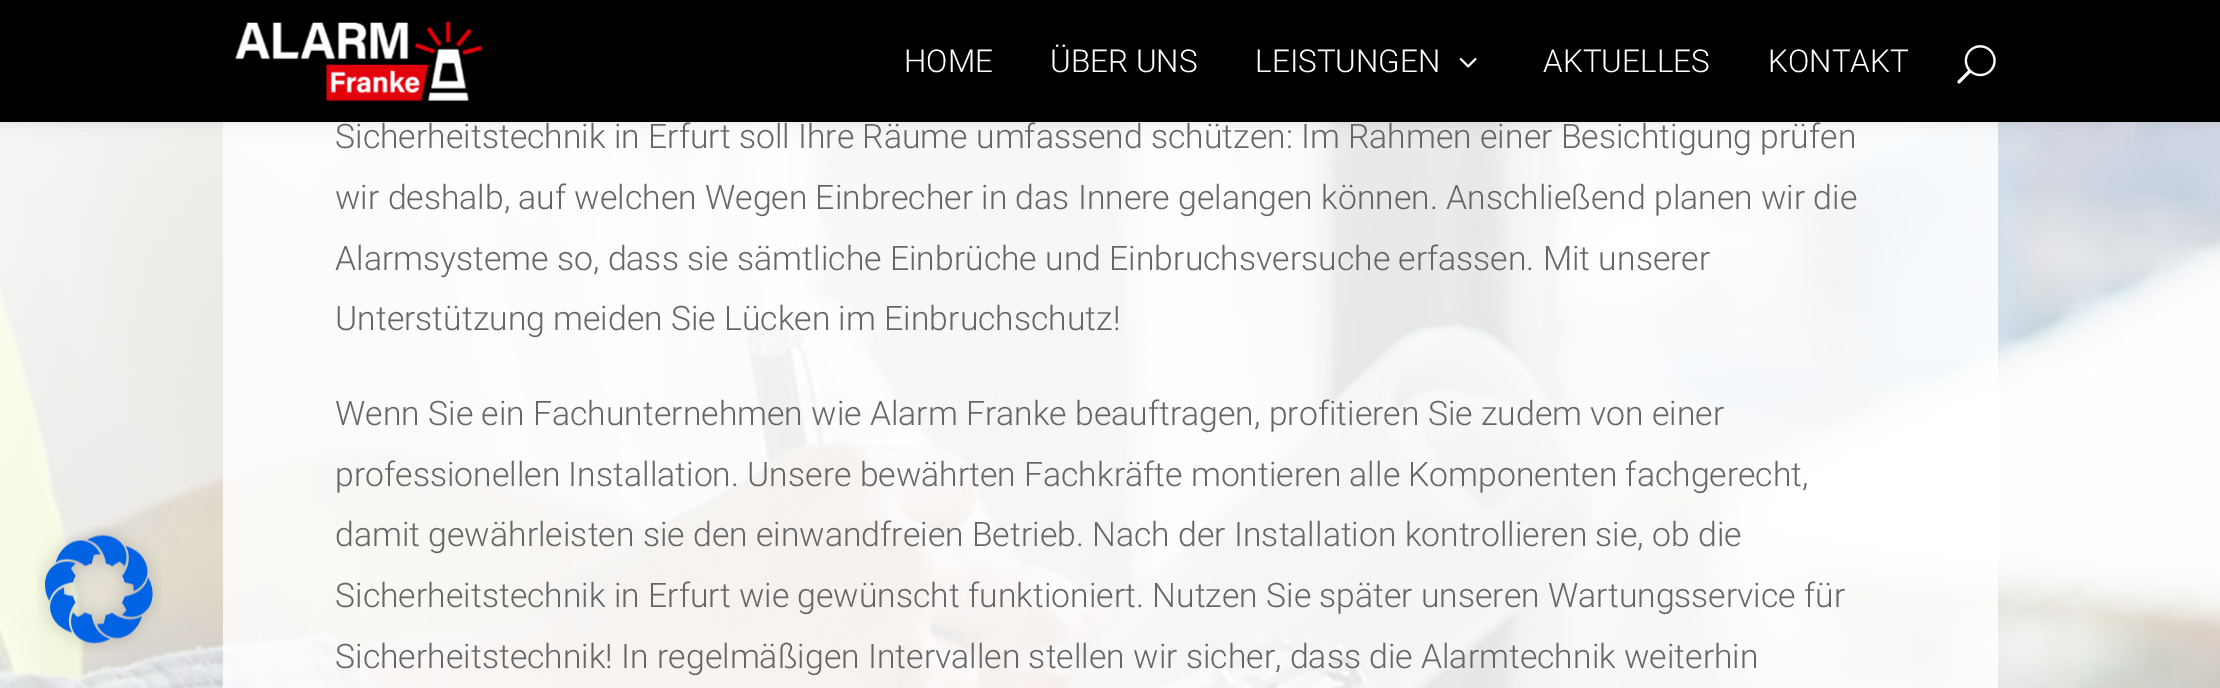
%!PS
<< /PageSize [2220 688] /PageUsesTransparency true >> setpagedevice
/C { dup -16 bitshift 255 div exch dup -8 bitshift 255 and 255 div exch 255 and 255 div setrgbcolor } def
/F { [ exch dup neg 0 0 3 -1 roll 0 0 ] selectfont } def
/T { moveto show } def
/R { rectfill } def
/A { dup .setfillconstantalpha .setstrokeconstantalpha } def
/Q { 5 dict begin { /r /h /w /y /x } { exch def } forall
  x r add y moveto x w add y 2 copy h add r arct x w add y h add x 1 index r arct
  x y h add x y r arct x y 2 copy exch w add exch r arct closepath end } def
/S { 12 dict begin { /a /b /q /h /w /y /x } { exch def } forall gsave /was 0 def
  9 -2 -9 { dup b mul 4 div /e exch def 1 sub .425 mul 2.718 exch exp 1 add a .99 .min exch div /now exch def
    1 1 now sub 1 was sub div sub A /was now def
    w h .min e 2 mul add 0 gt { x e sub y e sub w e 2 mul add h e 2 mul add
      q e add b .6 mul add w h .min 2 div e add .min 0 .max Q fill } if } for grestore end } def
/I { 5 dict begin { /h /w /y /x /name } { exch def } forall
  gsave x y translate w h scale
  w h 8 [w 0 0 h 0 0] name (r) file false 3 colorimage grestore end } def
0 .pushpdf14devicefilter
0 688 translate 1 -1 scale
4 setmiterlimit
16#FFFFFF C
0 0 2220 688 R
(5.rgb) 0 122 2220 566 I
(1.rgb) 36 526 126 126 I
0.84 A
223 122 1775 566 R
1 A
16#000000 C
0 0 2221 122 0 8 .1 S
0 0 2220 122 R
(2.rgb) 235 20 248 81 I
/Roboto-Light 31.5 F
16#FFFFFF C
(HOME) 904 72 T
(ÜBER UNS) 1050 72 T
(LEISTUNGEN) 1255 72 T
(3.rgb) 1459 58 18 10 I
(AKTUELLES) 1543 72 T
(KONTAKT) 1768 72 T
(4.rgb) 1957 45 39 39 I
/Roboto-Light 33.75 F
16#666666 C
(Sicherheitstechnik in Erfurt soll Ihre Räume umfassend schützen: Im Rahmen einer Besichtigung prüfen) 335 148 T
(wir deshalb, auf welchen Wegen Einbrecher in das Innere gelangen können. Anschließend planen wir die) 335 209 T
(Alarmsysteme so, dass sie sämtliche Einbrüche und Einbruchsversuche erfassen. Mit unserer) 335 270 T
(Unterstützung meiden Sie Lücken im Einbruchschutz!) 335 330 T
(Wenn Sie ein Fachunternehmen wie Alarm Franke beauftragen, profitieren Sie zudem von einer) 335 425 T
(professionellen Installation. Unsere bewährten Fachkräfte montieren alle Komponenten fachgerecht,) 335 486 T
(damit gewährleisten sie den einwandfreien Betrieb. Nach der Installation kontrollieren sie, ob die) 335 546 T
(Sicherheitstechnik in Erfurt wie gewünscht funktioniert. Nutzen Sie später unseren Wartungsservice für) 335 607 T
(Sicherheitstechnik! In regelmäßigen Intervallen stellen wir sicher, dass die Alarmtechnik weiterhin) 335 668 T
.poppdf14devicefilter showpage
